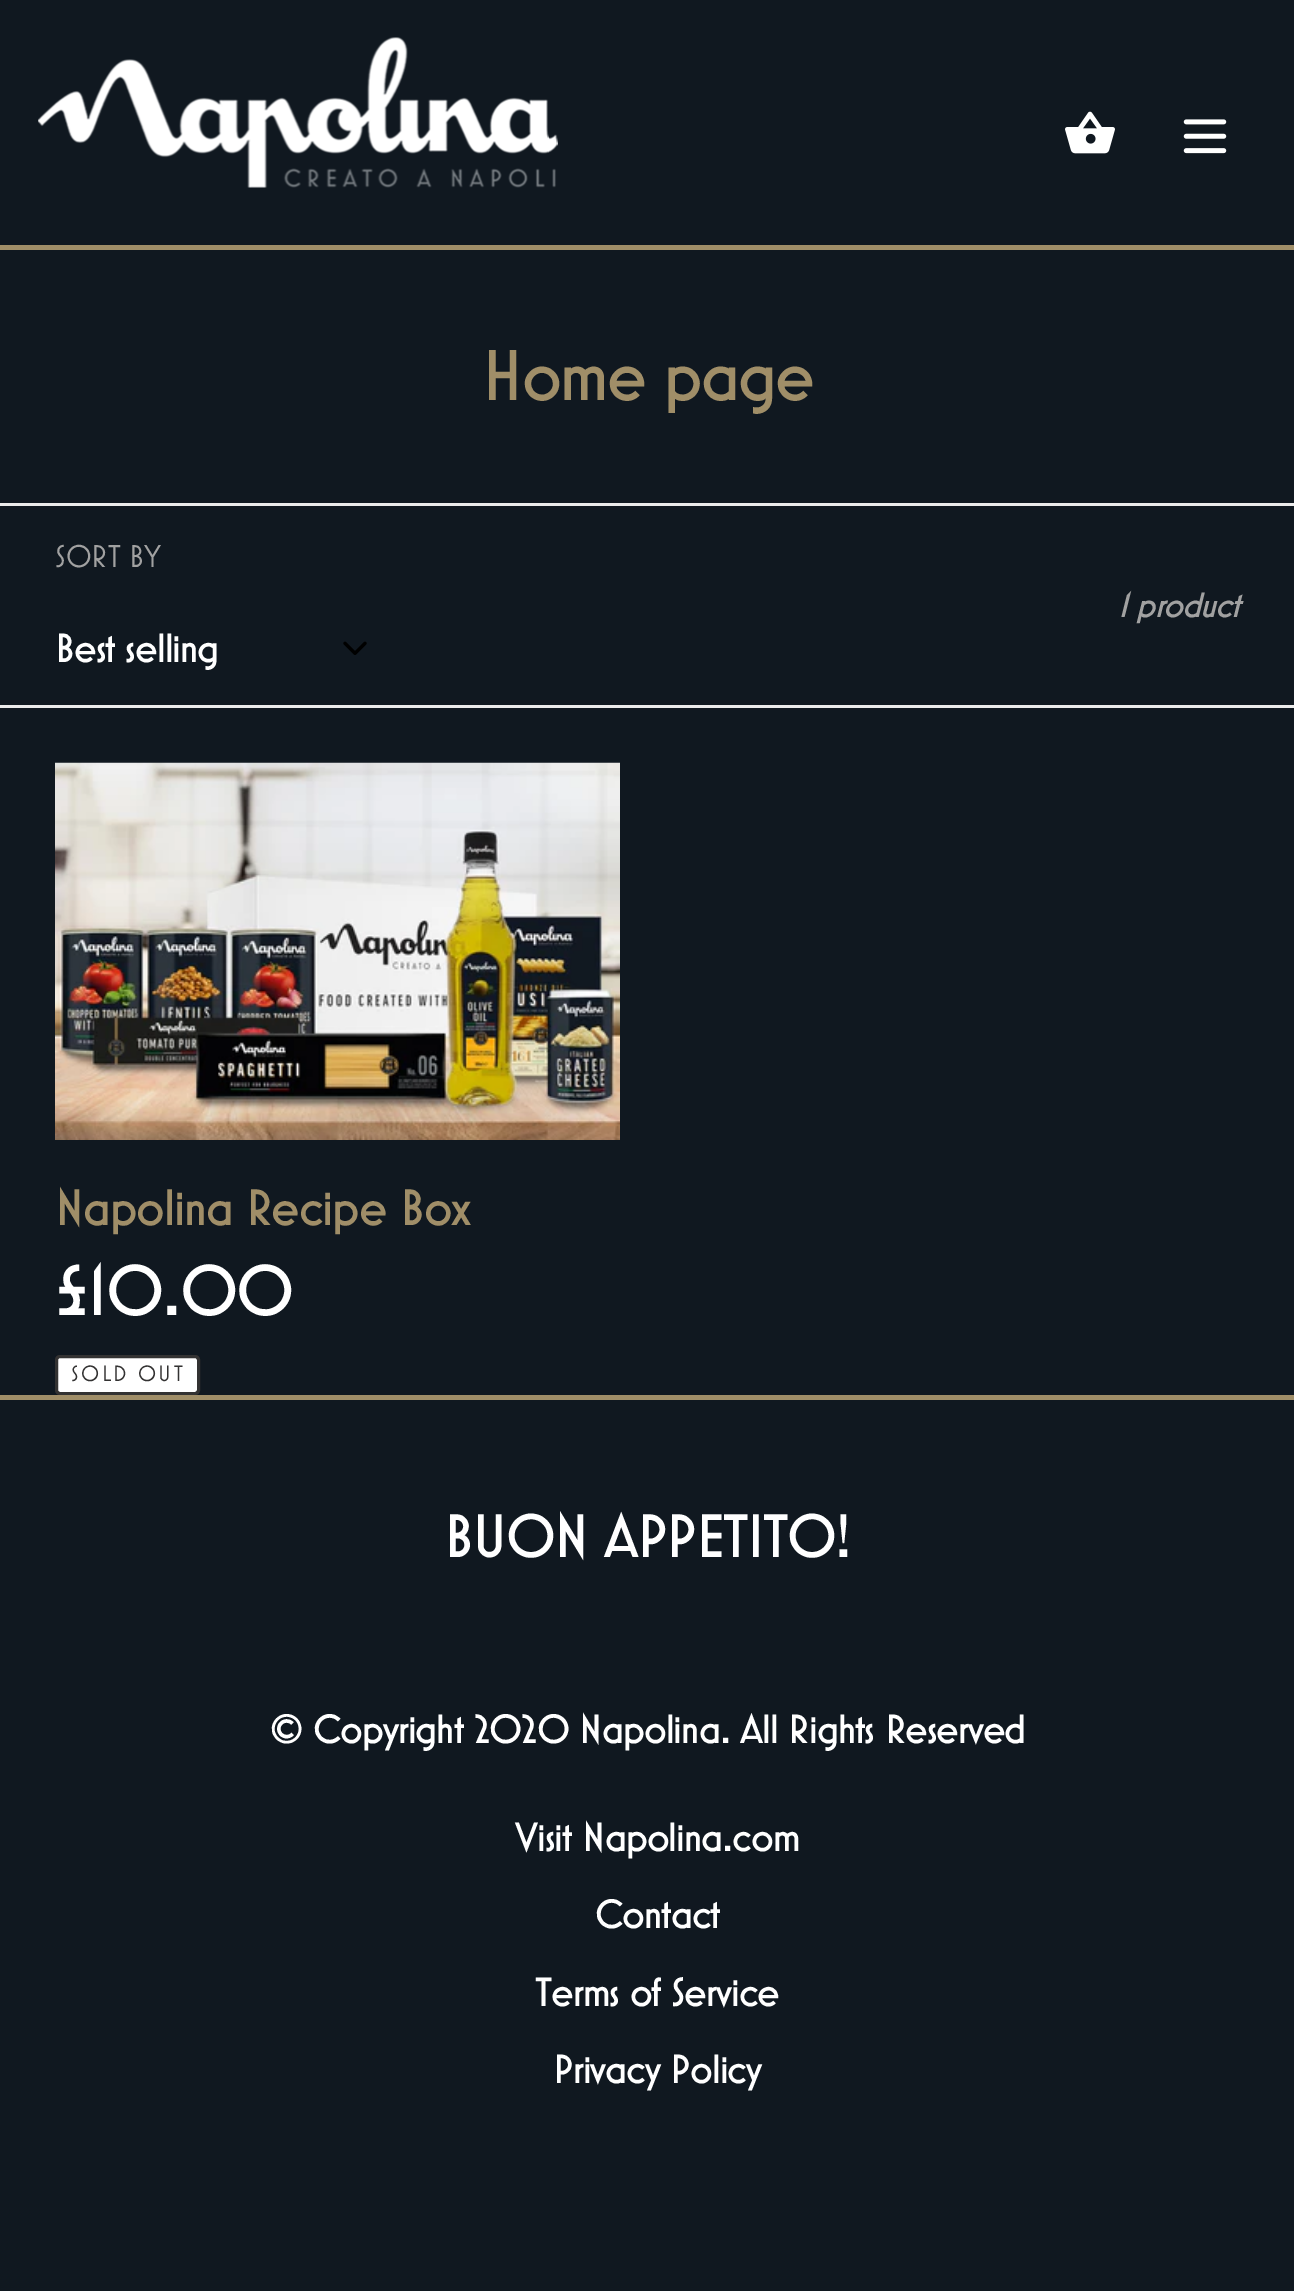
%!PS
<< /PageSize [1294 2291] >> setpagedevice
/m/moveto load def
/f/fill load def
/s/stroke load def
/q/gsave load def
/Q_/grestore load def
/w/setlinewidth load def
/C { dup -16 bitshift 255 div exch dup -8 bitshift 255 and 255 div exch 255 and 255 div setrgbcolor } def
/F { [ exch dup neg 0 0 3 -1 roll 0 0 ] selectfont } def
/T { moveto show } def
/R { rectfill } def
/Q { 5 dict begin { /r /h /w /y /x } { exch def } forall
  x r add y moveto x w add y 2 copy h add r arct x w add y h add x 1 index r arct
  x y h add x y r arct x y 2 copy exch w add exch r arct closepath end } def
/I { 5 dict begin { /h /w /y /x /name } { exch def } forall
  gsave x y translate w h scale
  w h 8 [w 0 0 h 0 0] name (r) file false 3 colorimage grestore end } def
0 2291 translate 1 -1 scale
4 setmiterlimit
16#101820 C
0 0 1294 2291 R
16#A08E68 C
0 245 1294 5 R
(1.rgb) 38 37 520 151 I
(2.rgb) 1065 111 50 43 I
(3.rgb) 1183 119 44 35 I
/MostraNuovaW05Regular-Bold 70 F
482 400 m .25 0 (Home page) ashow
16#EBEBEB C
0 503 1294 3 R
0 705 1294 3 R
/MostraNuovaW05Regular-Regular 32 F
16#A1A1A1 C
(SORT BY) 55 567 T
/MostraNuovaW05Regular-Bold 40 F
16#FFFFFF C
(Best selling) 55 662 T
(4.rgb) 343 641 24 14 I
/MostraNuovaW05Regular-BoldItalic 34.5 F
16#A1A1A1 C
(1 product) 1118 617 T
(5.rgb) 55 762 565 378 I
/MostraNuovaW05Regular-Bold 50 F
16#A08E68 C
55 1225 m .25 0 (Napolina Recipe Box) ashow
/MostraNuovaW05Regular-Bold 70 F
16#FFFFFF C
(£10.00) 55 1315 T
56.5 1356.5 142 37 3.5 Q q f Q_
16#333232 C
3 w
s
/MostraNuovaW05Regular-Regular 22.5 F
71 1381 m 2.5 0 (SOLD OUT) ashow
16#A08E68 C
0 1395 1294 5 R
/MostraNuovaW05Regular-Bold 60 F
16#FFFFFF C
(BUON APPETITO!) 444 1557 T
/MostraNuovaW05Regular-Bold 40 F
(© Copyright 2020 Napolina. All Rights Reserved) 270 1743 T
(Visit Napolina.com) 515 1851 T
(Contact) 595 1928 T
(Terms of Service) 535 2006 T
(Privacy Policy) 553 2083 T
showpage
